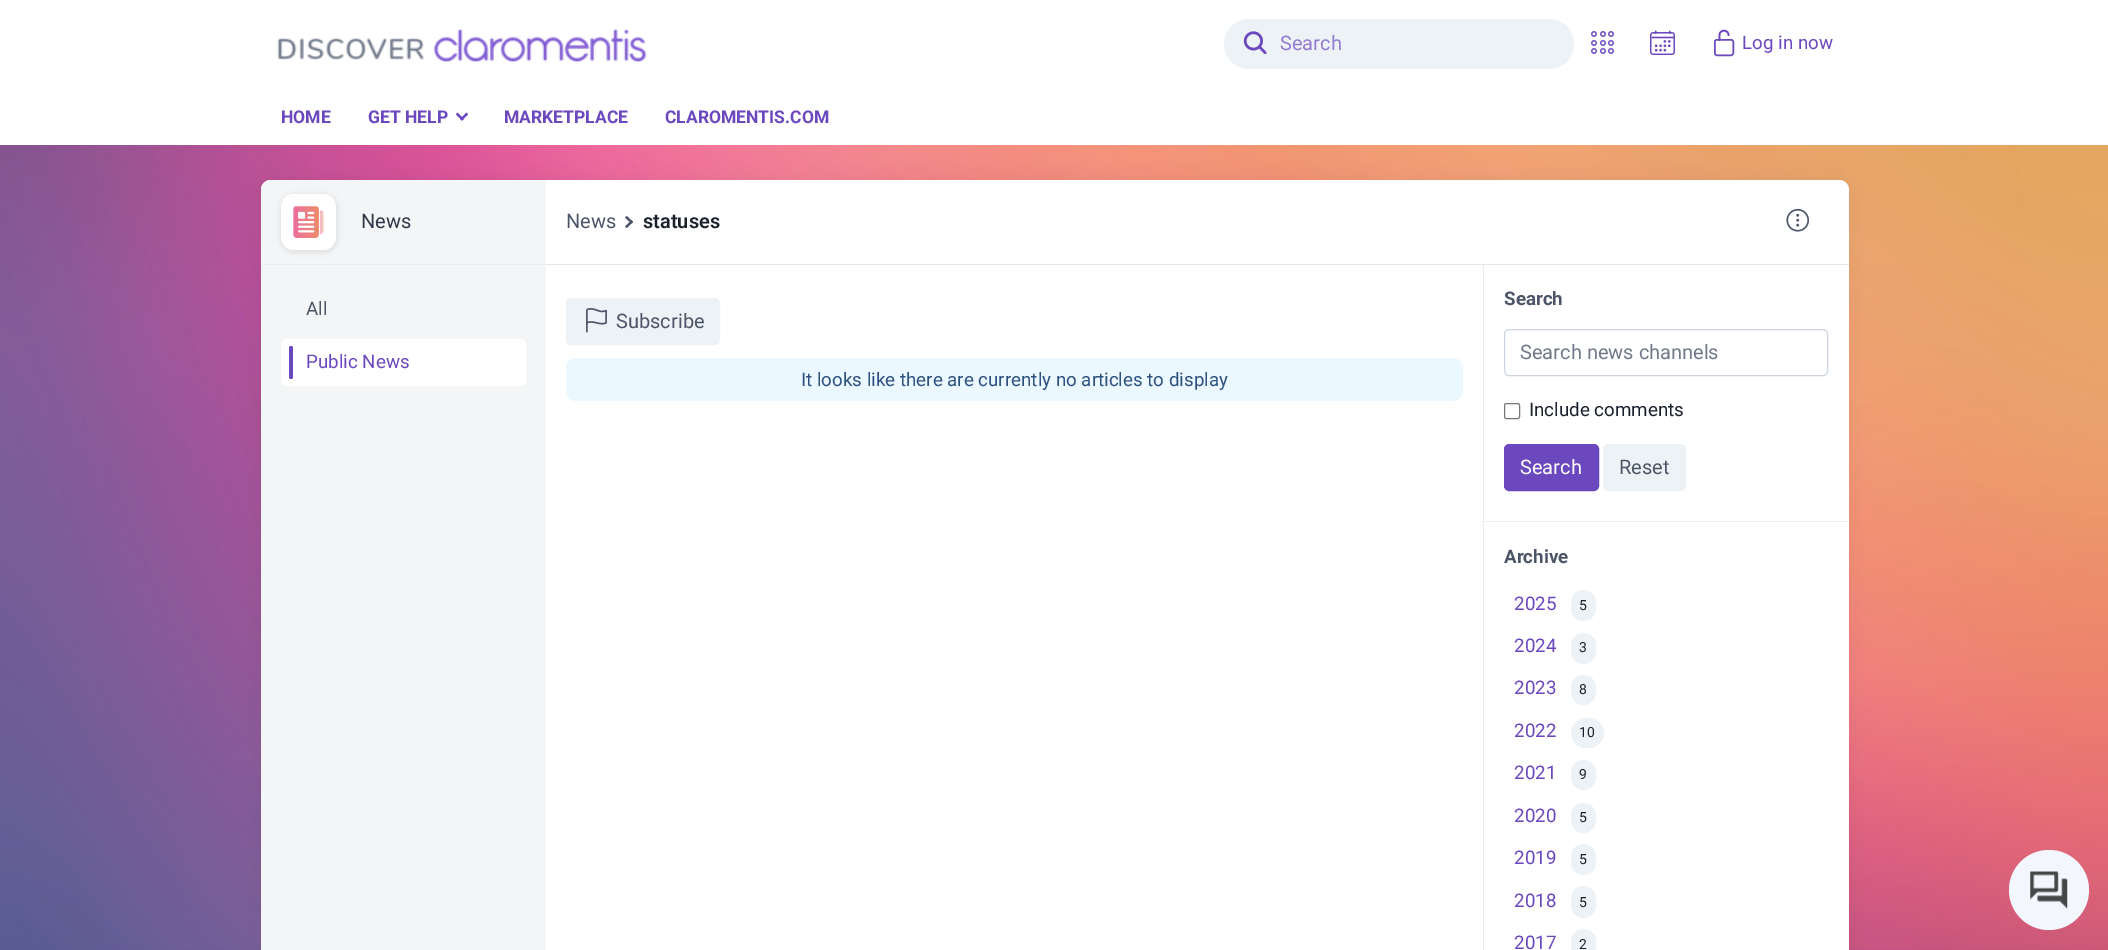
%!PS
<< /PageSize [2108 950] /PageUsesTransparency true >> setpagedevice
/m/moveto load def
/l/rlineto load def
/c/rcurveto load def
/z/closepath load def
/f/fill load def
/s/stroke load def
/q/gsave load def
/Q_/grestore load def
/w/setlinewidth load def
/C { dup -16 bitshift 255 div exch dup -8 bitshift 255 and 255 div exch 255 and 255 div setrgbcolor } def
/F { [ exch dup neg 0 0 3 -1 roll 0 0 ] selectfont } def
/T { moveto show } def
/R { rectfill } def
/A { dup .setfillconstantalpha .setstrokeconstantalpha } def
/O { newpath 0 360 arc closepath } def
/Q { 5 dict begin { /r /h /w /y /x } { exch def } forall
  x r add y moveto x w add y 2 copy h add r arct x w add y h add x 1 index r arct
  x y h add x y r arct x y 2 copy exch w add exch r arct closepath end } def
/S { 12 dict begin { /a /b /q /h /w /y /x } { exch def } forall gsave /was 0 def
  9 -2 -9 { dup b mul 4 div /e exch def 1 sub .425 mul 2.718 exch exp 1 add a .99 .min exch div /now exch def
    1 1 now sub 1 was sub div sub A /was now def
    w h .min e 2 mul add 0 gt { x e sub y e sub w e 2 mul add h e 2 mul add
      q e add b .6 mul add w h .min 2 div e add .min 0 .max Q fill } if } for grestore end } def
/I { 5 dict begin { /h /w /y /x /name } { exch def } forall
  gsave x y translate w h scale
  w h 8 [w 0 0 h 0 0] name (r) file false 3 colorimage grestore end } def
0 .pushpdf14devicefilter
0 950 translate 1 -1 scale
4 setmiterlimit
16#FFFFFF C
0 0 2108 950 R
(1.rgb) 277 28 370 34 I
16#EDF2F6 C
1224 19 350 50 25 Q f
(2.rgb) 1243 31 24 24 I
/Roboto-Regular 20 F
16#937BD0 C
(Search) 1280 50 T
(3.rgb) 1591 31 23 23 I
(4.rgb) 1650 30 25 25 I
16#6C48BF C
1.7 w
1 setlinecap
1 setlinejoin
1728.5 35 m 0 -5 -6.5 -6 -8.5 -2 c -1 2 -.5 5 -.5 7 c s
1.5 w
0 setlinecap
0 setlinejoin
1714.75 39.75 18.5 15.5 2.25 Q s
/Roboto-Regular 18.75 F
(Log in now) 1742 49 T
/Roboto-Bold 17.5 F
(HOME) 281 123 T
(GET HELP) 368 123 T
466.5 112.5 m 1.5 2 l -6 6 l -2 -1.5 l z f
457.5 112.5 m 6.5 6.5 l -2 1.5 l -6 -6 l z f
(MARKETPLACE) 504 123 T
(CLAROMENTIS.COM) 665 123 T
(9.rgb) 0 145 2108 805 I
16#000000 C
261 180 1588 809 10 9.5 .05 S
16#FFFFFF C
261 180 1588 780 10 Q f
16#E1E7EF C
546 264 1303 1 R
16#F3F5F6 C
271 180 m 275 0 l 0 84 l -285 0 l 0 -74 l 0 -5.5 4.5 -10 10 -10 c z f
16#000000 C
280 194 58 59 14 2.5 .07 S
16#FFFFFF C
281 194 55 56 13 Q f
(5.rgb) 293 206 31 32 I
/Roboto-Regular 20 F
16#2E3747 C
(News) 361 228 T
16#EAEEF0 C
261 264 285 1 R
16#4C5567 C
(News) 566 228 T
627 216 m 6 6 l -1.5 1.5 l -6.5 -6 l z f
631.5 220 m 1.5 2 l -6 6 l -2 -1.5 l z f
/Roboto-SemiBold 20 F
16#1A212D C
(statuses) 643 228 T
(6.rgb) 1786 208 24 24 I
16#F3F5F6 C
261 265 285 685 R
/Roboto-Regular 18.75 F
16#4C5567 C
(All) 306 315 T
16#FFFFFF C
281 339 245 47 5 Q f
16#6C48BF C
289 346 4 33 2 Q f
(Public News) 306 368 T
16#EDF2F7 C
566.5 298.5 153 46 4.5 Q q f Q_
1 w
s
(7.rgb) 586 308 21 25 I
/Roboto-Regular 20 F
16#4C5567 C
(Subscribe) 616 328 T
16#EBF8FF C
566 358 897 43 10 Q f
/Roboto-Regular 18.75 F
16#2E517F C
(It looks like there are currently no articles to display) 801 386 T
16#EAEEF0 C
1483 265 1 685 R
/Roboto-Bold 18.75 F
16#4C5567 C
(Search) 1504 305 T
16#CDD6E0 C
1504.5 329.5 323 46 4.5 Q s
/Roboto-Regular 20 F
16#707989 C
(Search news channels) 1520 359 T
16#767676 C
1504.5 403.5 15 15 2 Q s
/Roboto-Regular 18.75 F
16#1A212D C
(Include comments) 1529 416 T
16#6C48BF C
1504.5 444.5 94 46 4.5 Q q f Q_
s
/Roboto-Regular 20 F
16#FFFFFF C
(Search) 1520 474 T
16#EDF2F7 C
1603.5 444.5 82 46 4.5 Q q f Q_
s
16#4C5567 C
(Reset) 1619 474 T
16#EAEEF0 C
1484 521 364 1 R
/Roboto-Bold 18.75 F
16#4C5567 C
(Archive) 1504 563 T
/Roboto-Regular 18.75 F
16#6C48BF C
(2025) 1514 610 T
16#EDF2F7 C
1571 590 25 31 12.5 Q f
/Roboto-Regular 14 F
16#1A212D C
(5) 1579 610 T
/Roboto-Regular 18.75 F
16#6C48BF C
(2024) 1514 652 T
16#EDF2F7 C
1571 633 25 31 12.5 Q f
/Roboto-Regular 14 F
16#1A212D C
(3) 1579 652 T
/Roboto-Regular 18.75 F
16#6C48BF C
(2023) 1514 694 T
16#EDF2F7 C
1571 675 25 30 12.5 Q f
/Roboto-Regular 14 F
16#1A212D C
(8) 1579 694 T
/Roboto-Regular 18.75 F
16#6C48BF C
(2022) 1514 737 T
16#EDF2F7 C
1571 718 33 30 15 Q f
/Roboto-Regular 14 F
16#1A212D C
(10) 1579 737 T
/Roboto-Regular 18.75 F
16#6C48BF C
(2021) 1514 779 T
16#EDF2F7 C
1571 760 25 30 12.5 Q f
/Roboto-Regular 14 F
16#1A212D C
(9) 1579 779 T
/Roboto-Regular 18.75 F
16#6C48BF C
(2020) 1514 822 T
16#EDF2F7 C
1571 803 25 30 12.5 Q f
/Roboto-Regular 14 F
16#1A212D C
(5) 1579 822 T
/Roboto-Regular 18.75 F
16#6C48BF C
(2019) 1514 864 T
16#EDF2F7 C
1571 844 25 31 12.5 Q f
/Roboto-Regular 14 F
16#1A212D C
(5) 1579 864 T
/Roboto-Regular 18.75 F
16#6C48BF C
(2018) 1514 907 T
16#EDF2F7 C
1571 886 25 32 12.5 Q f
/Roboto-Regular 14 F
16#1A212D C
(5) 1579 907 T
/Roboto-Regular 18.75 F
16#6C48BF C
(2017) 1514 949 T
16#EDF2F7 C
1571 929 25 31 12.5 Q f
/Roboto-Regular 14 F
16#1A212D C
(2) 1579 949 T
16#F3F6FC C
2049 890 40 O f
(8.rgb) 2030 871 38 38 I
.poppdf14devicefilter showpage
